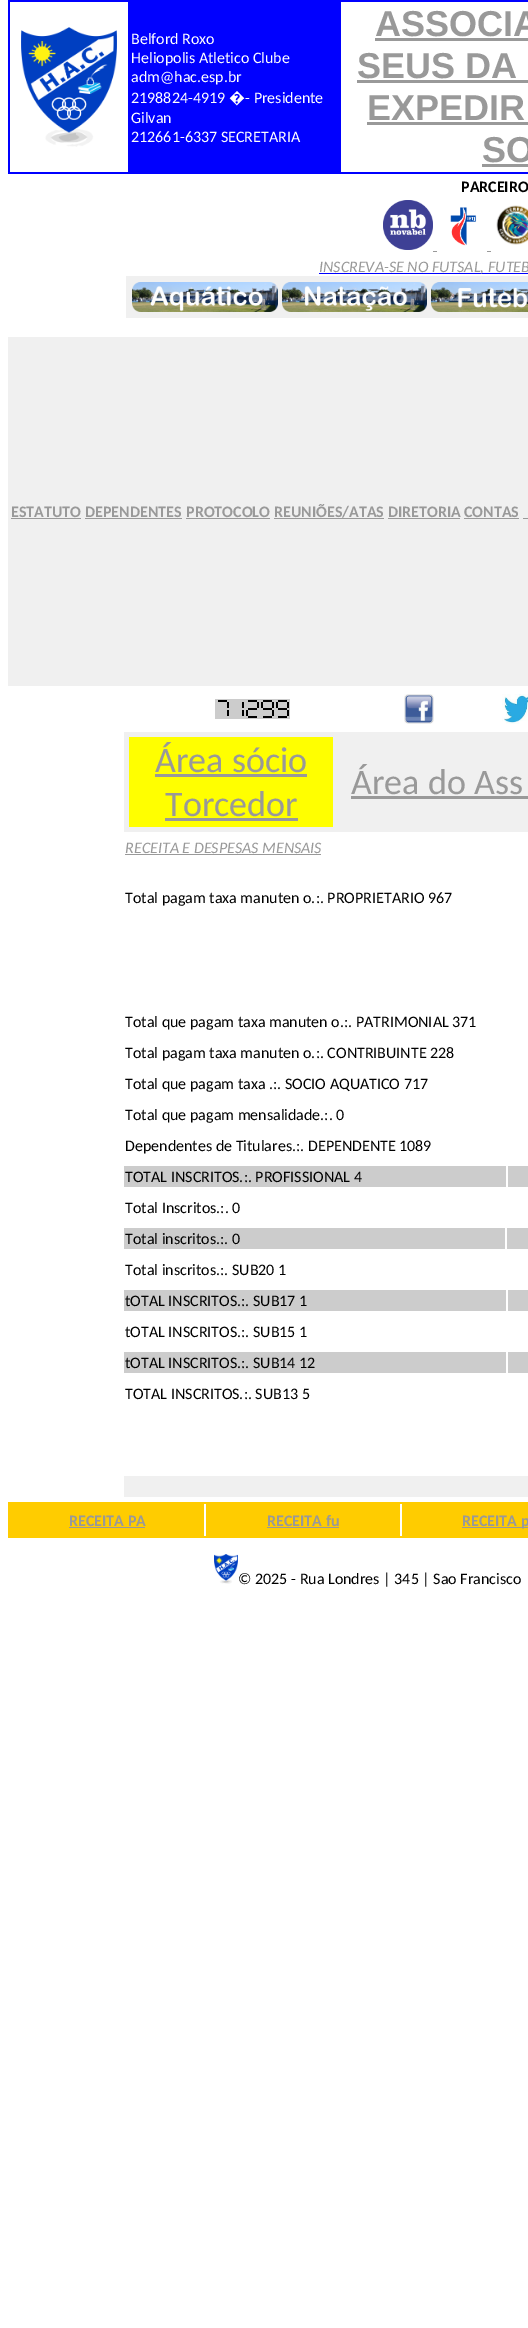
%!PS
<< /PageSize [528 2328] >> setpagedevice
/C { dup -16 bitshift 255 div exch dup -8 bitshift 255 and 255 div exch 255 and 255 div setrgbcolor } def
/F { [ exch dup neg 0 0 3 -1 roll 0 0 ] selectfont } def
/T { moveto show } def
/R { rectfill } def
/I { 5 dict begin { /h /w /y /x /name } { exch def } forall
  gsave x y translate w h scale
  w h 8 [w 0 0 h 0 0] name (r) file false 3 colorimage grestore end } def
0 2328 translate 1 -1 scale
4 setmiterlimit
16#FFFFFF C
0 0 528 2328 R
16#0000FF C
8 0 520 174 R
16#FFFFFF C
10 2 118 170 R
(1.rgb) 21 27 96 120 I
/Carlito-Regular 16 F
(Belford Roxo) 131 44 T
(Heliopolis Atletico Clube) 131 63 T
(adm@hac.esp.br) 131 82 T
(2198824-4919) 131 103 T
/NotoSans-Regular 16 F
(�) 229 103 T
/Carlito-Regular 16 F
(- Presidente) 245 103 T
(Gilvan) 131 123 T
(212661-6337 SECRETARIA) 131 142 T
341 2 187 170 R
/LiberationSans-Bold 36 F
16#999999 C
(ASSOCIA) 375 36 T
375 38 153 3 R
(SEUS DA) 357 78 T
357 80 171 3 R
(EXPEDIR) 367 120 T
367 122 161 3 R
(SO) 482 162 T
482 164 46 3 R
/Carlito-Bold 16 F
16#000000 C
(PARCEIRO) 461 192 T
(2.rgb) 383 200 50 50 I
(3.rgb) 450 207 27 39 I
(4.rgb) 496 205 32 40 I
16#999999 C
433 251 4 1 R
487 251 4 1 R
16#0000FF C
319 273 209 1 R
/Carlito-Italic 16 F
16#999999 C
(INSCREVA-SE NO FUTSAL, FUTEB) 319 272 T
16#F0F0F0 C
126 276 402 42 R
(5.rgb) 132 282 146 30 I
(6.rgb) 282 282 145 30 I
(7.rgb) 431 282 97 30 I
8 337 520 349 R
/Carlito-Bold 16 F
16#999999 C
(ESTATUTO) 11 517 T
11 518 70 1 R
(DEPENDENTES) 85 517 T
85 518 97 1 R
(PROTOCOLO) 186 517 T
186 518 84 1 R
(REUNIÕES/ATAS) 274 517 T
274 518 110 1 R
(DIRETORIA) 388 517 T
388 518 72 1 R
(CONTAS) 464 517 T
464 518 55 1 R
523 518 5 1 R
(8.rgb) 215 699 75 20 I
(9.rgb) 404 694 30 30 I
(10.rgb) 502 694 26 30 I
16#F0F0F0 C
124 732 404 100 R
16#FFFF00 C
129 737 204 90 R
/Carlito-Regular 36 F
16#999999 C
(Área sócio) 155 772 T
155 774 152 3 R
(Torcedor) 165 816 T
165 818 133 3 R
(Área do Ass) 351 794 T
351 796 177 3 R
/Carlito-Italic 16 F
(RECEITA E DESPESAS MENSAIS) 125 853 T
125 854 196 1 R
/Carlito-Regular 16 F
16#000000 C
(Total pagam taxa manuten o.:. PROPRIETARIO 967) 125 903 T
(Total que pagam taxa manuten o.:. PATRIMONIAL 371) 125 1027 T
(Total pagam taxa manuten o.:. CONTRIBUINTE 228) 125 1058 T
(Total que pagam taxa .:. SOCIO AQUATICO 717) 125 1089 T
(Total que pagam mensalidade.:. 0) 125 1120 T
(Dependentes de Titulares.:. DEPENDENTE 1089) 125 1151 T
16#CCCCCC C
124 1166 382 21 R
16#000000 C
(TOTAL INSCRITOS.:. PROFISSIONAL 4) 125 1182 T
16#CCCCCC C
508 1166 20 21 R
16#000000 C
(Total Inscritos.:. 0) 125 1213 T
16#CCCCCC C
124 1228 381 21 R
16#000000 C
(Total inscritos.:. 0) 125 1244 T
16#CCCCCC C
507 1228 21 21 R
16#000000 C
(Total inscritos.:. SUB20 1) 125 1275 T
16#CCCCCC C
124 1290 382 21 R
16#000000 C
(tOTAL INSCRITOS.:. SUB17 1) 125 1306 T
16#CCCCCC C
508 1290 20 21 R
16#000000 C
(tOTAL INSCRITOS.:. SUB15 1) 125 1337 T
16#CCCCCC C
124 1352 382 21 R
16#000000 C
(tOTAL INSCRITOS.:. SUB14 12) 125 1368 T
16#CCCCCC C
508 1352 20 21 R
16#000000 C
(TOTAL INSCRITOS.:. SUB13 5) 125 1399 T
16#F0F0F0 C
124 1476 404 21 R
16#FFCC00 C
8 1502 520 36 R
16#FFFFFF C
204 1504 198 32 R
/Carlito-Bold 16 F
16#999999 C
(RECEITA PA) 69 1526 T
69 1527 76 1 R
16#FFCC00 C
206 1504 194 32 R
16#999999 C
(RECEITA fu) 267 1526 T
267 1527 72 1 R
462 1527 66 1 R
(RECEITA p) 462 1526 T
(11.rgb) 214 1554 24 30 I
/Carlito-Regular 16 F
16#000000 C
(© 2025 - Rua Londres | 345 | Sao Francisco) 238 1584 T
showpage
